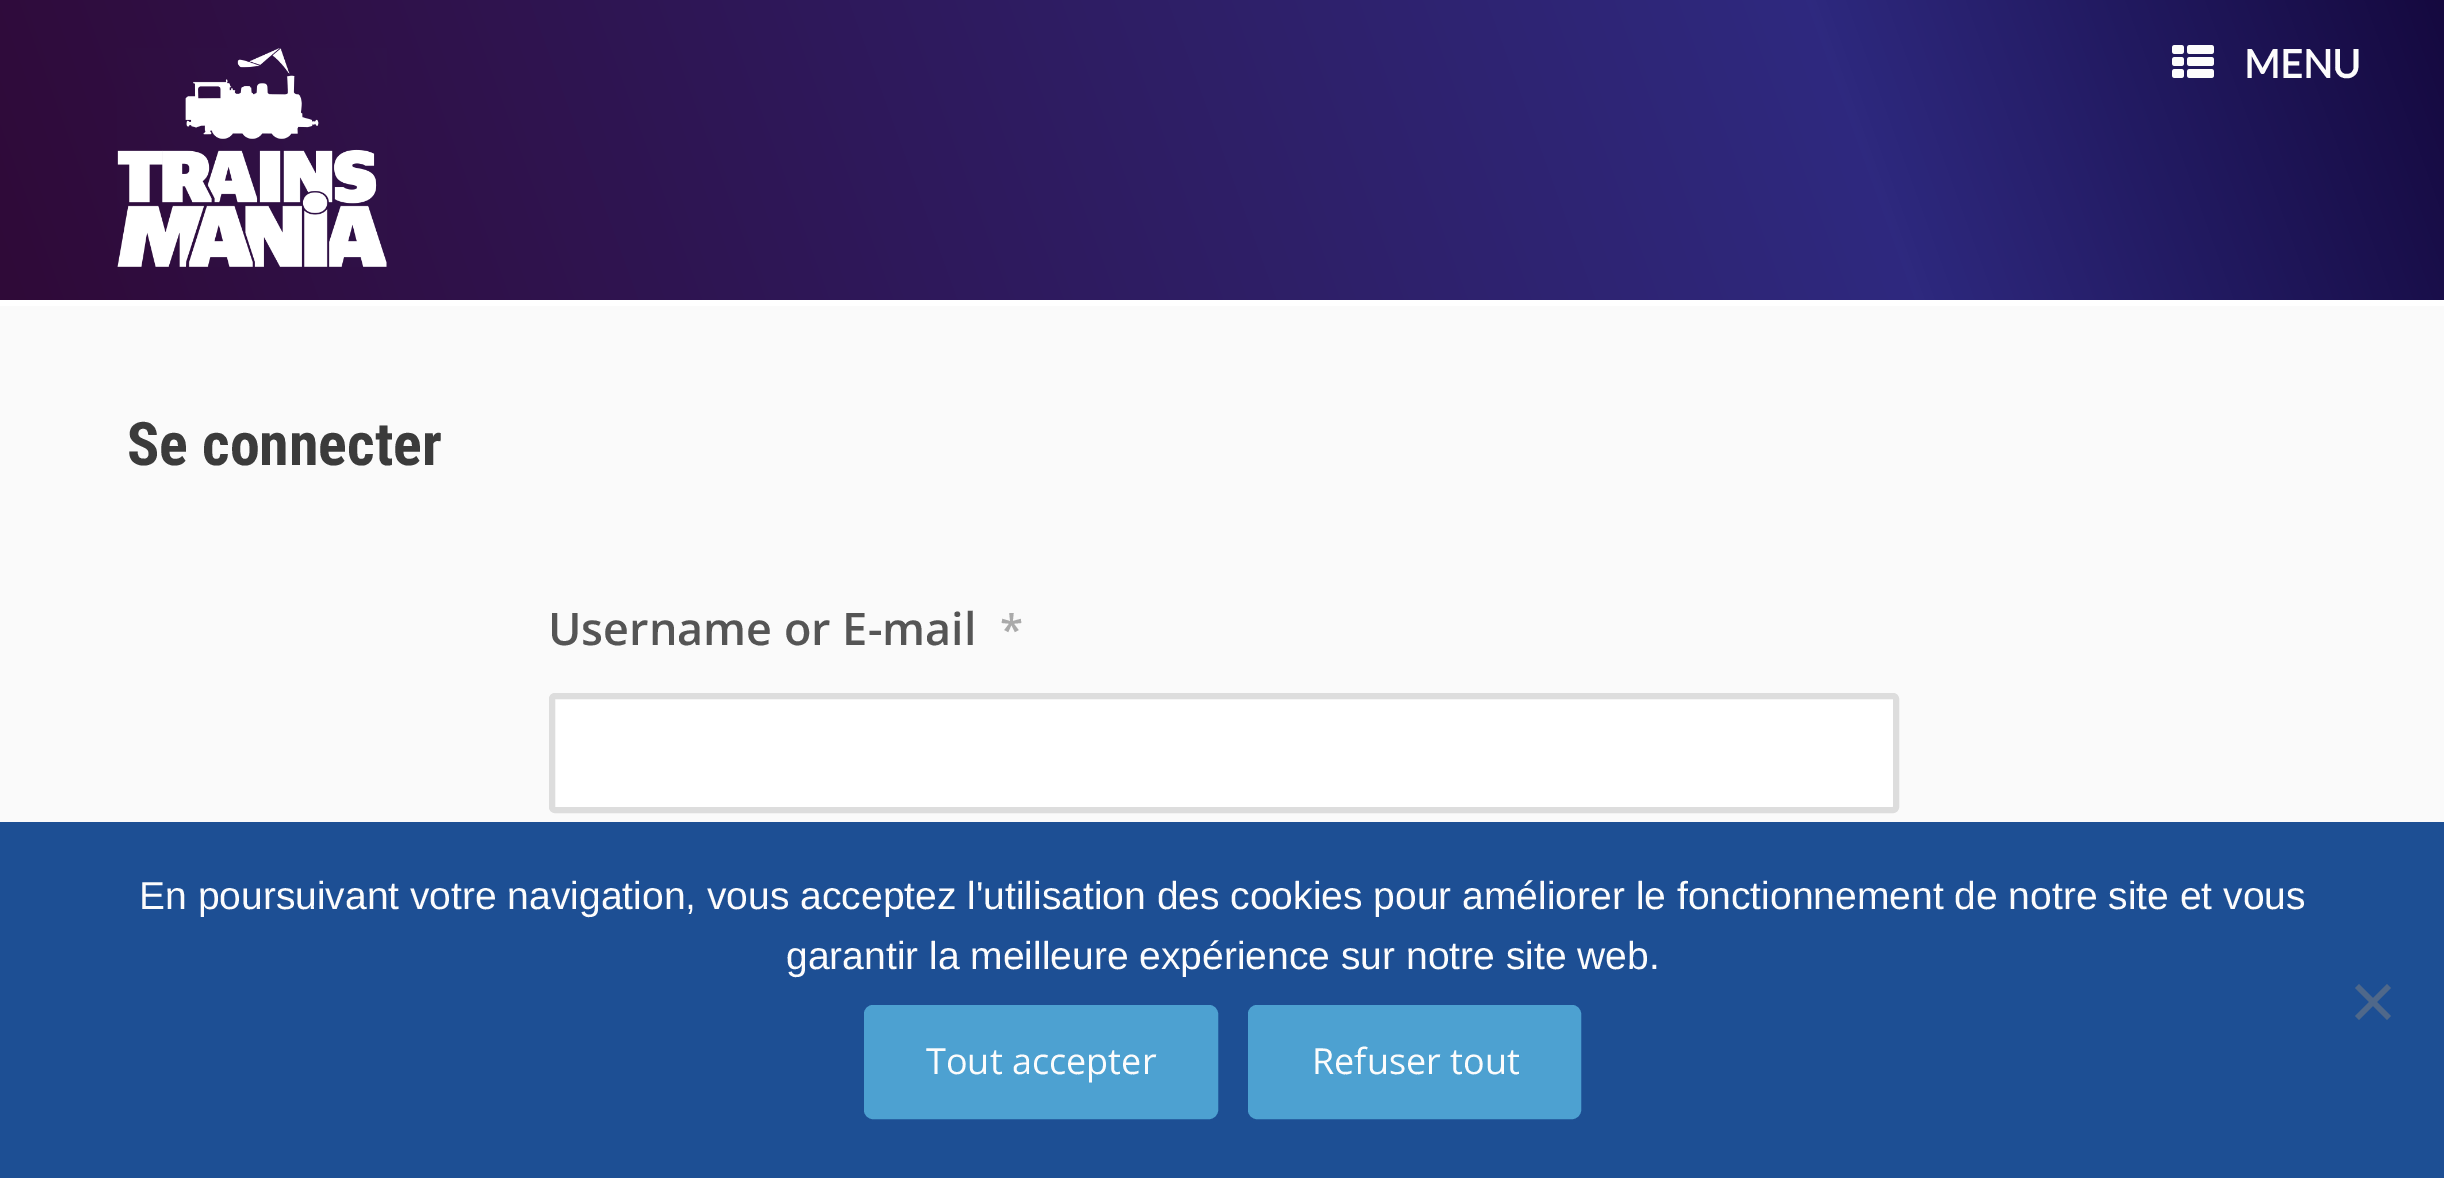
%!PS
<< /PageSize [2444 1178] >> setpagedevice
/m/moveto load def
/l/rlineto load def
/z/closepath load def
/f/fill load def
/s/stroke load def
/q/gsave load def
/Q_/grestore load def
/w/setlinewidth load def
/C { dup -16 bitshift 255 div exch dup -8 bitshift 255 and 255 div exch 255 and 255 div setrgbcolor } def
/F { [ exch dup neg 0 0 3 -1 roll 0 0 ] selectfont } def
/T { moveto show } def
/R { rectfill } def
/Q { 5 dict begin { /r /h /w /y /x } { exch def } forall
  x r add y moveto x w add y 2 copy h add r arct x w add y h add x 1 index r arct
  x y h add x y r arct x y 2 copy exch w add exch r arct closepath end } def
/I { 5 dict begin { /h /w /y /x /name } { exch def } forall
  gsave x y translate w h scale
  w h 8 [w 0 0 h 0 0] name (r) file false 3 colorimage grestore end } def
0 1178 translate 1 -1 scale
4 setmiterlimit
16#FAFAFA C
0 0 2444 1178 R
16#FFFFFF C
0 300 2444 6 R
q 0 0 m 2444 0 l 0 300 l -2444 0 l z clip newpath
<< /ShadingType 2 /ColorSpace /DeviceRGB /Coords [95 560 2350 -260] /Extend [true true] /Function << /FunctionType 3 /Domain [0 1] /Functions [<< /FunctionType 2 /Domain [0 1] /C0 [.184 .039 .22] /C1 [.18 .161 .498] /N 1 >> << /FunctionType 2 /Domain [0 1] /C0 [.18 .161 .498] /C1 [.082 .035 .247] /N 1 >>] /Bounds [.75] /Encode [0 1 0 1] >> >> shfill Q_
(1.rgb) 117 48 270 219 I
(2.rgb) 2172 45 42 33 I
/Lato-Bold 39 F
16#FCFCFC C
(MENU) 2244 78 T
/RobotoCondensed-Bold 60 F
16#3B3B3B C
(Se connecter) 127 465 T
/OpenSans-SemiBold 45 F
16#555555 C
(Username or E-mail) 548 645 T
/OpenSans-SemiBold 42 F
16#AAAAAA C
(*) 1000 645 T
16#FFFFFF C
552 696 1344 114 3 Q q f Q_
16#DDDDDD C
6 w
s
16#1D4F94 C
0 822 2444 356 R
/LiberationSans-Regular 39 F
16#FCFCFC C
(En poursuivant votre navigation, vous acceptez l'utilisation des cookies pour améliorer le fonctionnement de notre site et vous) 139 909 T
(garantir la meilleure expérience sur notre site web.) 786 969 T
16#4F688A C
2387 984 m 4 4 l -32 32 l -4 -4 l z f
2355 988 m 4 -4 l 32 32 l -4 4 l z f
16#4DA1D1 C
865.5 1006.5 351 111 7.5 Q q f Q_
3 w
s
/OpenSans-Regular 36 F
16#FCFCFC C
(Tout accepter) 926 1074 T
16#4DA1D1 C
1249.5 1006.5 330 111 7.5 Q q f Q_
s
16#FCFCFC C
(Refuser tout) 1312 1074 T
showpage
